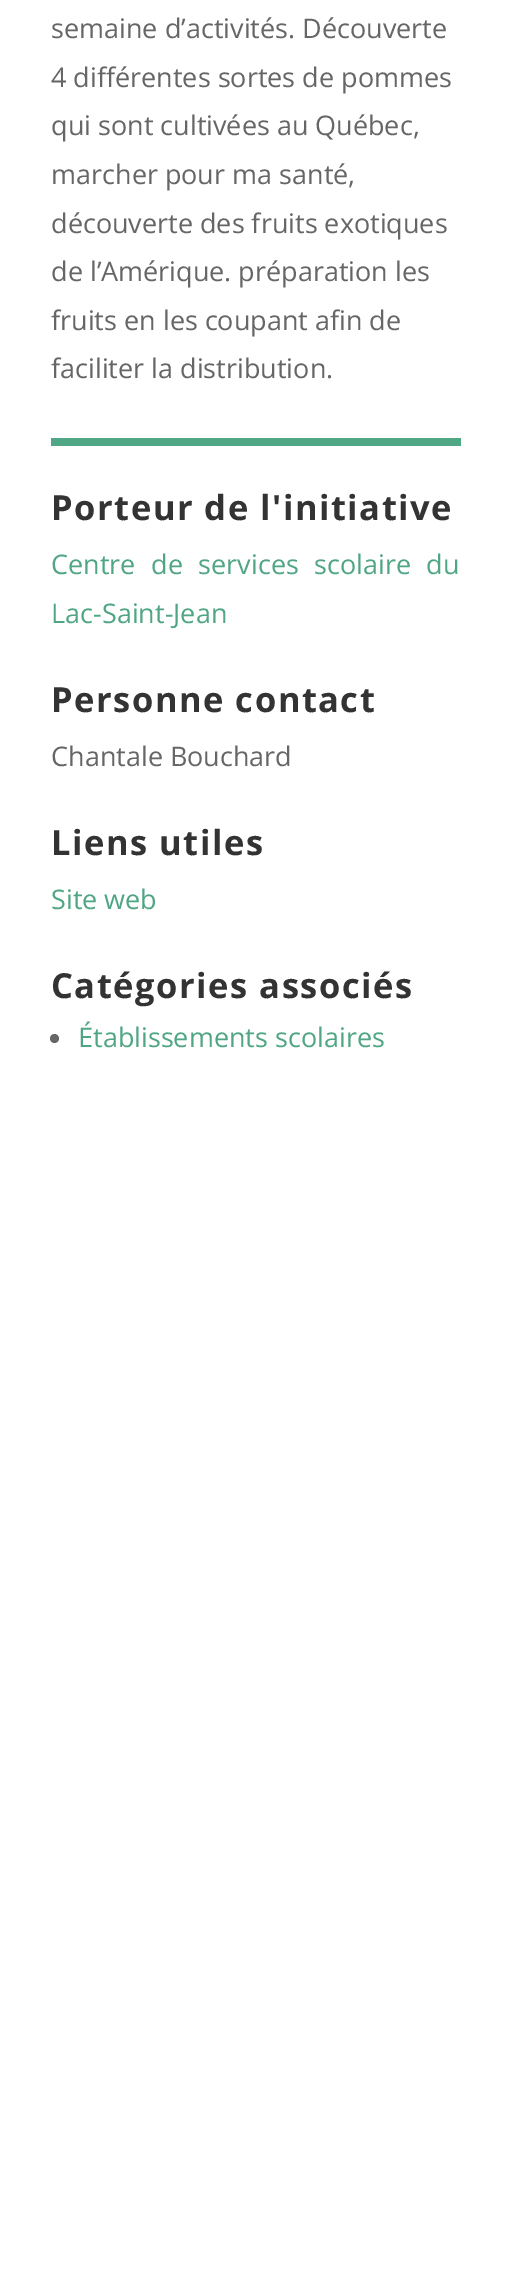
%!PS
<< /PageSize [511 2272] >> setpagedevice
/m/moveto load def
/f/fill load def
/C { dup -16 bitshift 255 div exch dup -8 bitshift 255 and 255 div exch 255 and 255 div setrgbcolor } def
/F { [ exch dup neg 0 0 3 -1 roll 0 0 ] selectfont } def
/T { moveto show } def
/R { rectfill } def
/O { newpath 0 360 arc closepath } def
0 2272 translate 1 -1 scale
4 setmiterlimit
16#FFFFFF C
0 0 511 2272 R
/OpenSans-Regular 27 F
16#666666 C
(semaine d’activités. Découverte) 51 38 T
(4 différentes sortes de pommes) 51 87 T
(qui sont cultivées au Québec,) 51 135 T
(marcher pour ma santé,) 51 184 T
(découverte des fruits exotiques) 51 233 T
(de l’Amérique. préparation les) 51 281 T
(fruits en les coupant afin de) 51 330 T
(faciliter la distribution.) 51 378 T
16#4FA785 C
51 438 410 8 R
/OpenSans-Bold 34.5 F
16#333333 C
51 520 m 1.5 0 (Porteur de l'initiative) ashow
/OpenSans-Regular 27 F
16#50A684 C
51 574 m 8.5 0 32 (Centre de services scolaire du) widthshow
(Lac-Saint-Jean) 51 623 T
/OpenSans-Bold 34.5 F
16#333333 C
51 712 m 1.5 0 (Personne contact) ashow
/OpenSans-Regular 27 F
16#666666 C
(Chantale Bouchard) 51 766 T
/OpenSans-Bold 34.5 F
16#333333 C
51 855 m 1.5 0 (Liens utiles) ashow
/OpenSans-Regular 27 F
16#50A684 C
(Site web) 51 909 T
/OpenSans-Bold 34.5 F
16#333333 C
51 998 m 1.5 0 (Catégories associés) ashow
16#666666 C
54.5 1038.5 4.5 O f
/OpenSans-Regular 27 F
16#50A684 C
(Établissements scolaires) 78 1047 T
showpage
